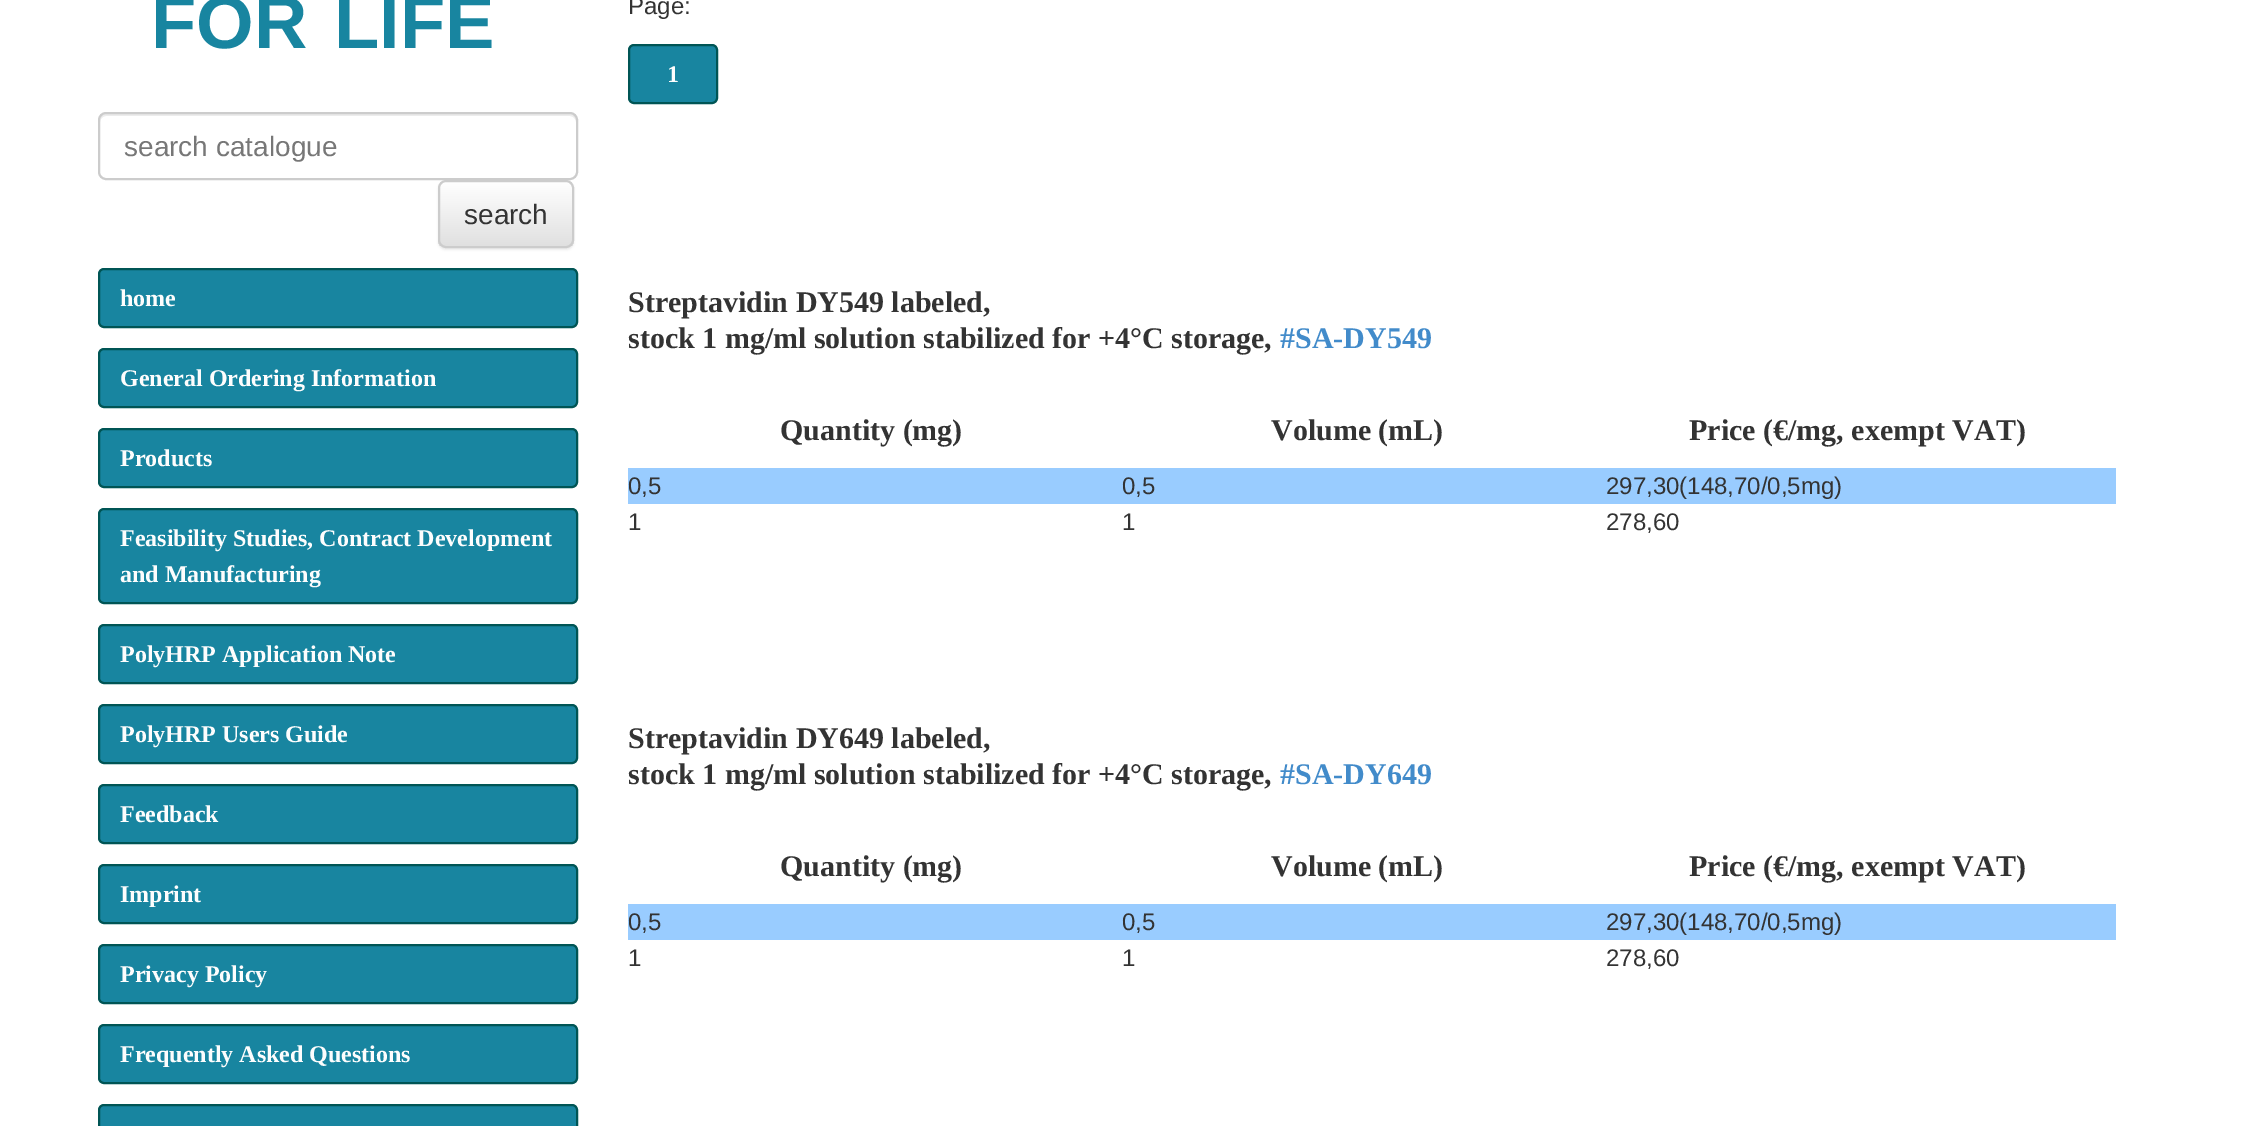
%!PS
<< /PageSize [2244 1126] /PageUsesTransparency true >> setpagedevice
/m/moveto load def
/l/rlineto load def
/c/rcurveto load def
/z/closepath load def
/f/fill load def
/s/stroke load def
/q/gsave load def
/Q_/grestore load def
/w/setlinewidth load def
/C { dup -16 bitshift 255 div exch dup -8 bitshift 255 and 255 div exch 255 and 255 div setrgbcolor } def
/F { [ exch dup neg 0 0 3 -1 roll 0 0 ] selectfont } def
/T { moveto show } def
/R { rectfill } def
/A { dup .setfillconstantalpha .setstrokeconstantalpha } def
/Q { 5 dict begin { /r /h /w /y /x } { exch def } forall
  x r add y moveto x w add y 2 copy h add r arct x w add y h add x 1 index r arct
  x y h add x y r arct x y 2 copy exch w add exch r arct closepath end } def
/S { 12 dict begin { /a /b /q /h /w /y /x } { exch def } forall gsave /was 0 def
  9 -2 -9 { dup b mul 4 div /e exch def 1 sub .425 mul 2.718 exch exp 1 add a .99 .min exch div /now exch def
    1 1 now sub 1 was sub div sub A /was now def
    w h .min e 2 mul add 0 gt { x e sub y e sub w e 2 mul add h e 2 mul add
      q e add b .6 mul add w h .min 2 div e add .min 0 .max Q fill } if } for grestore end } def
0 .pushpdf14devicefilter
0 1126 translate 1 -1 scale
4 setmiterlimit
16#FFFFFF C
0 0 2244 1126 R
/LiberationSans-Bold 74 F
16#1885A0 C
(FOR) 151 48 T
(LIFE) 334 48 T
16#ECECEC C
106 116 m 464 0 l 3 0 6 3 6 6 c 0 -4 -1 -8 -6 -8 c -464 0 l -5 0 -6 4 -6 8 c 0 -3 3 -6 6 -6 c z f
16#CCCCCC C
2 w
99 113 478 66 7 Q s
/LiberationSans-Regular 28 F
16#777777 C
(search catalogue) 124 156 T
16#000000 C
438 182 136 68 8 1 .07 S
q
438 180 136 68 8 Q clip newpath
q 438 182 m 136 0 l 0 64 l -136 0 l z clip newpath
<< /ShadingType 2 /ColorSpace /DeviceRGB /Coords [506 182 506 246] /Extend [true true] /Function << /FunctionType 2 /Domain [0 1] /C0 [1 1 1] /C1 [.878 .878 .878] /N 1 >> >> shfill Q_
Q_
16#CCCCCC C
439 181 134 66 7 Q s
16#333333 C
(search) 464 224 T
16#1885A0 C
99 269 478 58 5 Q q f Q_
16#005555 C
s
/LiberationSerif-Bold 24 F
16#FDFDFD C
(home) 120 306 T
16#1885A0 C
99 349 478 58 5 Q q f Q_
16#005555 C
s
16#FDFDFD C
(General Ordering Information) 120 386 T
16#1885A0 C
99 429 478 58 5 Q q f Q_
16#005555 C
s
16#FDFDFD C
(Products) 120 466 T
16#1885A0 C
99 509 478 94 5 Q q f Q_
16#005555 C
s
16#FDFDFD C
(Feasibility Studies, Contract Development) 120 546 T
(and Manufacturing) 120 582 T
16#1885A0 C
99 625 478 58 5 Q q f Q_
16#005555 C
s
16#FDFDFD C
(PolyHRP Application Note) 120 662 T
16#1885A0 C
99 705 478 58 5 Q q f Q_
16#005555 C
s
16#FDFDFD C
(PolyHRP Users Guide) 120 742 T
16#1885A0 C
99 785 478 58 5 Q q f Q_
16#005555 C
s
16#FDFDFD C
(Feedback) 120 822 T
16#1885A0 C
99 865 478 58 5 Q q f Q_
16#005555 C
s
16#FDFDFD C
(Imprint) 120 902 T
16#1885A0 C
99 945 478 58 5 Q q f Q_
16#005555 C
s
16#FDFDFD C
(Privacy Policy) 120 982 T
16#1885A0 C
99 1025 478 58 5 Q q f Q_
16#005555 C
s
16#FDFDFD C
(Frequently Asked Questions) 120 1062 T
16#1885A0 C
99 1105 478 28 5 Q q f Q_
16#005555 C
s
/LiberationSans-Regular 24 F
16#333333 C
(Page:) 628 14 T
16#1885A0 C
629 45 88 58 5 Q q f Q_
16#005555 C
s
/LiberationSerif-Bold 24 F
16#FDFDFD C
(1) 667 82 T
/LiberationSerif-Bold 30 F
16#333333 C
(Streptavidin DY549 labeled,) 628 312 T
(stock 1 mg/ml solution stabilized for +4°C storage,) 628 348 T
16#428BCA C
(#SA-DY549) 1280 348 T
16#333333 C
(Quantity \(mg\)) 780 440 T
(Volume \(mL\)) 1271 440 T
(Price \(€/mg, exempt VAT\)) 1689 440 T
16#99CCFF C
628 468 1488 36 R
/LiberationSans-Regular 24 F
16#333333 C
(0,5) 628 494 T
(0,5) 1122 494 T
(297,30\(148,70/0,5mg\)) 1606 494 T
(1) 628 530 T
(1) 1122 530 T
(278,60) 1606 530 T
/LiberationSerif-Bold 30 F
(Streptavidin DY649 labeled,) 628 748 T
(stock 1 mg/ml solution stabilized for +4°C storage,) 628 784 T
16#428BCA C
(#SA-DY649) 1280 784 T
16#333333 C
(Quantity \(mg\)) 780 876 T
(Volume \(mL\)) 1271 876 T
(Price \(€/mg, exempt VAT\)) 1689 876 T
16#99CCFF C
628 904 1488 36 R
/LiberationSans-Regular 24 F
16#333333 C
(0,5) 628 930 T
(0,5) 1122 930 T
(297,30\(148,70/0,5mg\)) 1606 930 T
(1) 628 966 T
(1) 1122 966 T
(278,60) 1606 966 T
.poppdf14devicefilter showpage
